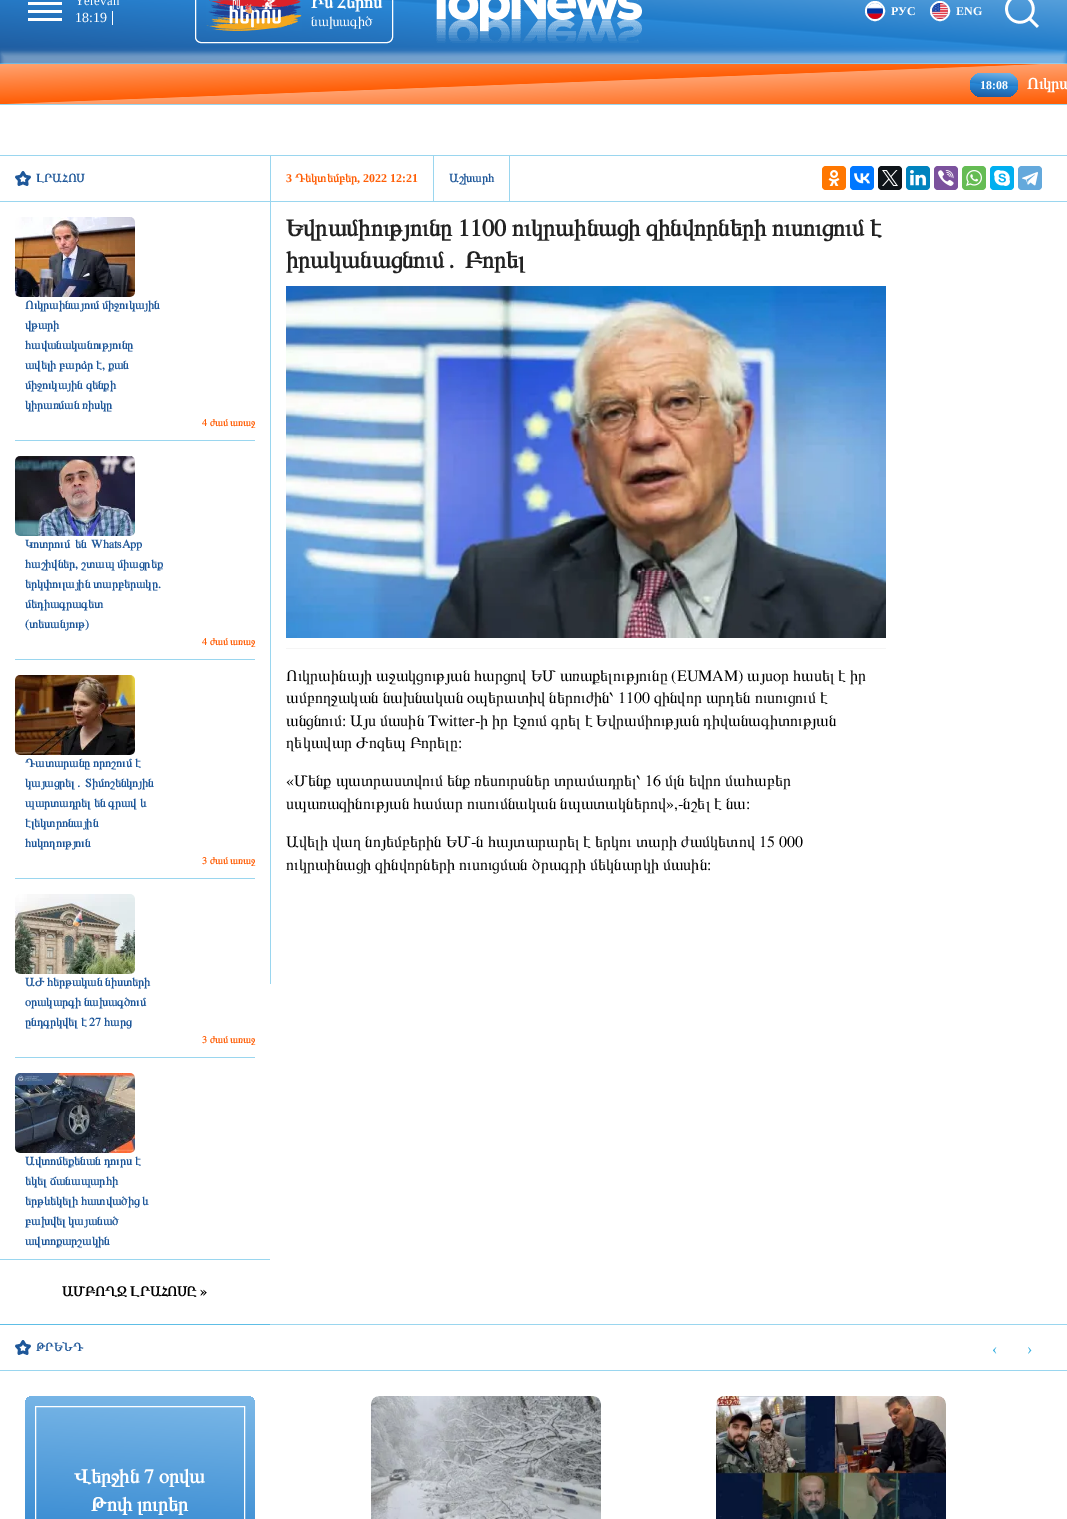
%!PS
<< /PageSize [1067 1519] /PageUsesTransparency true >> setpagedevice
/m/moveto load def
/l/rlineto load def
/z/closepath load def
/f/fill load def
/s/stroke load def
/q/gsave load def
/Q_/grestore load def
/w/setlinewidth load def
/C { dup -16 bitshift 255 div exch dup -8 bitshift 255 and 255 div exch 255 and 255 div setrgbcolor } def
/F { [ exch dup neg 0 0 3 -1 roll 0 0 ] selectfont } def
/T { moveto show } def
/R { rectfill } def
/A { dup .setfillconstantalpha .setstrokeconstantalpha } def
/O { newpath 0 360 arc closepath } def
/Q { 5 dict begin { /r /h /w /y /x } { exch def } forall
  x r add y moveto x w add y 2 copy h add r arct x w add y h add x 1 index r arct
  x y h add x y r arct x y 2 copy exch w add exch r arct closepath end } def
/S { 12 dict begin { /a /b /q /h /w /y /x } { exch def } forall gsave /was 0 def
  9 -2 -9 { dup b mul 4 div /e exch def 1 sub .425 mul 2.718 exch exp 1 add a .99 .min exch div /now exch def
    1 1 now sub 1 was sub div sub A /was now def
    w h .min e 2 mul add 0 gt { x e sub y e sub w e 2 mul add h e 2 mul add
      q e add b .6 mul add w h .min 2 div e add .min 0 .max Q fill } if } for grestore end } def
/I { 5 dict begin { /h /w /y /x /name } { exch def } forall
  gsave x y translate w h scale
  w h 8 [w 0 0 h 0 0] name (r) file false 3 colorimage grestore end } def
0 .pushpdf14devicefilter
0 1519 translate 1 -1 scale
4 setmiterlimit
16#FFFFFF C
0 0 1067 1519 R
16#9AD6EF C
270 1324 797 1 R
q 0 0 m 1067 0 l 0 63 l -1067 0 l z clip newpath
<< /ShadingType 2 /ColorSpace /DeviceRGB /Coords [527 100 540 -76] /Extend [true true] /Function << /FunctionType 3 /Domain [0 1] /Functions [<< /FunctionType 2 /Domain [0 1] /C0 [.118 .341 .6] /C1 [.161 .537 .847] /N 1 >> << /FunctionType 2 /Domain [0 1] /C0 [.161 .537 .847] /C1 [.125 .486 .792] /N 1 >> << /FunctionType 2 /Domain [0 1] /C0 [.125 .486 .792] /C1 [.49 .725 .91] /N 1 >>] /Bounds [.5 .51] /Encode [0 1 0 1 0 1] >> >> shfill Q_
q 0 63 m 1067 0 l 0 1 l -1067 0 l z clip newpath
<< /ShadingType 2 /ColorSpace /DeviceRGB /Coords [527 202 540 26] /Extend [true true] /Function << /FunctionType 3 /Domain [0 1] /Functions [<< /FunctionType 2 /Domain [0 1] /C0 [.082 .451 .702] /C1 [.106 .569 .847] /N 1 >> << /FunctionType 2 /Domain [0 1] /C0 [.106 .569 .847] /C1 [.086 .537 .816] /N 1 >> << /FunctionType 2 /Domain [0 1] /C0 [.086 .537 .816] /C1 [.302 .678 .886] /N 1 >>] /Bounds [.5 .51] /Encode [0 1 0 1 0 1] >> >> shfill Q_
(1.rgb) 28 2 34 19 I
/LiberationSerif-Regular 13 F
16#FFFFFF C
(Yerevan) 75 5 T
112 11 1 14 R
/LiberationSerif-Regular 14 F
(18:19) 75 22 T
195.5 -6.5 197 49 5.5 Q s
(2.rgb) 206 0 96 31 I
/FreeSerif-Bold 18 F
(Իմ Հերոս) 311 8 T
/FreeSerif-Regular 14 F
(նախագիծ) 311 26 T
(3.rgb) 436 0 206 43 I
2 w
875 11 9 O s
(4.rgb) 867 3 16 16 I
/LiberationSerif-Bold 12 F
(РУС) 891 15 T
940 11 9 O s
(5.rgb) 932 3 16 16 I
(ENG) 956 15 T
(6.rgb) 1005 0 34 28 I
1 53 1065 38 0 2.5 .38 S
q 0 64 m 1067 0 l 0 40 l -1067 0 l z clip newpath
<< /ShadingType 2 /ColorSpace /DeviceRGB /Coords [535 123 532 45] /Extend [true true] /Function << /FunctionType 3 /Domain [0 1] /Functions [<< /FunctionType 2 /Domain [0 1] /C0 [1 .369 .024] /C1 [1 .627 .427] /N 1 >> << /FunctionType 2 /Domain [0 1] /C0 [1 .627 .427] /C1 [1 .369 .024] /N 1 >> << /FunctionType 2 /Domain [0 1] /C0 [1 .369 .024] /C1 [1 .627 .427] /N 1 >>] /Bounds [.5 .51] /Encode [0 1 0 1 0 1] >> >> shfill Q_
q 970 73 48 24 12 Q clip newpath
<< /ShadingType 2 /ColorSpace /DeviceRGB /Coords [993 99 995 71] /Extend [true true] /Function << /FunctionType 3 /Domain [0 1] /Functions [<< /FunctionType 2 /Domain [0 1] /C0 [.118 .341 .6] /C1 [.161 .537 .847] /N 1 >> << /FunctionType 2 /Domain [0 1] /C0 [.161 .537 .847] /C1 [.125 .486 .792] /N 1 >> << /FunctionType 2 /Domain [0 1] /C0 [.125 .486 .792] /C1 [.49 .725 .91] /N 1 >>] /Bounds [.5 .51] /Encode [0 1 0 1 0 1] >> >> shfill Q_
(18:08) 980 89 T
/FreeSerif-Bold 16 F
(Ուկրա) 1027 89 T
16#9AD6EF C
0 104 1067 1 R
0 155 270 1 R
0 201 270 1 R
(7.rgb) 15 171 16 15 I
/FreeSerif-Bold 12 F
16#1E5799 C
(ԼՐԱՀՈՍ) 36 182 T
16#9AD6EF C
15 440 240 1 R
(8.rgb) 15 217 120 80 I
16#1E5799 C
(Ուկրաինայում միջուկային) 25 309 T
(վթարի) 25 329 T
(հավանականությունը) 25 349 T
(ավելի բարձր է, քան) 25 369 T
(միջուկային զենքի) 25 389 T
(կիրառման ռիսկը) 25 409 T
/FreeSerif-Bold 10 F
16#FF5E06 C
(4 ժամ առաջ) 202 426 T
16#9AD6EF C
15 659 240 1 R
(9.rgb) 15 456 120 80 I
/FreeSerif-Bold 12 F
16#1E5799 C
25 548 m 2 0 32 (Կոտրում են WhatsApp) widthshow
(հաշիվներ, շտապ միացրեք) 25 568 T
(երկփուլային տարբերակը.) 25 588 T
(մեդիագրագետ) 25 608 T
(\(տեսանյութ\)) 25 628 T
/FreeSerif-Bold 10 F
16#FF5E06 C
(4 ժամ առաջ) 202 645 T
16#9AD6EF C
15 878 240 1 R
(10.rgb) 15 675 120 80 I
/FreeSerif-Bold 12 F
16#1E5799 C
(Դատարանը որոշում է) 25 767 T
(կայացրել․ Տիմոշենկոյին) 25 787 T
(պարտադրել են գրավ և) 25 807 T
(էլեկտրոնային) 25 827 T
(հսկողություն) 25 847 T
/FreeSerif-Bold 10 F
16#FF5E06 C
(3 ժամ առաջ) 202 864 T
16#9AD6EF C
15 1057 240 1 R
(11.rgb) 15 894 120 80 I
/FreeSerif-Bold 12 F
16#1E5799 C
(ԱԺ հերթական նիստերի) 25 986 T
(օրակարգի նախագծում) 25 1006 T
(ընդգրկվել է 27 հարց) 25 1026 T
/FreeSerif-Bold 10 F
16#FF5E06 C
(3 ժամ առաջ) 202 1043 T
(12.rgb) 15 1073 120 80 I
/FreeSerif-Bold 12 F
16#1E5799 C
(Ավտոմեքենան դուրս է) 25 1165 T
(եկել ճանապարհի) 25 1185 T
(երթևեկելի հատվածից և) 25 1205 T
(բախվել կայանած) 25 1225 T
(ավտոքարշակին) 25 1245 T
16#9AD6EF C
0 1259 270 1 R
16#5EBEE6 C
0 1324 270 1 R
/FreeSerif-Bold 14 F
16#000000 C
(ԱՄԲՈՂՋ ԼՐԱՀՈՍԸ ») 62 1296 T
16#9AD6EF C
270 155 1 829 R
271 155 796 1 R
271 201 796 1 R
433 156 1 45 R
/LiberationSerif-Bold 12 F
16#FF5E06 C
(3) 286 182 T
/FreeSerif-Bold 12 F
(Դեկտեմբեր) 295 182 T
/LiberationSerif-Bold 12 F
(, 2022 12:21) 357 182 T
16#9AD6EF C
509 156 1 45 R
/FreeSerif-Bold 12 F
16#1E5799 C
(Աշխարհ) 449 182 T
16#FF7700 C
822 166 24 24 4 Q f
(13.rgb) 828 170 12 16 I
16#0077FF C
850 166 24 24 4 Q f
(14.rgb) 854 173 16 11 I
16#0F1419 C
878 166 24 24 4 Q f
(15.rgb) 882 170 16 16 I
16#0083BE C
906 166 24 24 4 Q f
(16.rgb) 910 170 16 16 I
16#7B519D C
934 166 24 24 4 Q f
(17.rgb) 938 170 16 16 I
16#65BC54 C
962 166 24 24 4 Q f
(18.rgb) 966 170 16 16 I
16#00AFF0 C
990 166 24 24 4 Q f
(19.rgb) 994 170 16 16 I
16#64A9DC C
1018 166 24 24 4 Q f
(20.rgb) 1022 172 16 14 I
/FreeSerif-Bold 24 F
16#222222 C
(Եվրամիությունը 1100 ուկրաինացի զինվորների ուսուցում է) 286 236 T
(իրականացնում․ Բորել) 286 268 T
16#F5F5F5 C
286 648 600 1 R
(21.rgb) 286 286 600 352 I
/FreeSerif-Regular 16 F
16#000000 C
(Ուկրաինայի աջակցության հարցով ԵՄ առաքելությունը \(EUMAM\) այսօր հասել է իր) 286 681 T
(ամբողջական նախնական օպերատիվ ներուժին՝ 1100 զինվոր արդեն ուսուցում է) 286 703 T
(անցնում։ Այս մասին Twitter-ի իր էջում գրել է Եվրամիության դիվանագիտության) 286 726 T
(ղեկավար Ժոզեպ Բորելը։) 286 748 T
(«Մենք պատրաստվում ենք ռեսուրսներ տրամադրել՝ 16 մլն եվրո մահաբեր) 286 786 T
(սպառազինության համար ուսումնական նպատակներով»,-նշել է նա։) 286 809 T
(Ավելի վաղ նոյեմբերին ԵՄ-ն հայտարարել է երկու տարի ժամկետով 15 000) 286 847 T
(ուկրաինացի զինվորների ուսուցման ծրագրի մեկնարկի մասին։) 286 870 T
16#9AD6EF C
0 1370 1067 1 R
(7.rgb) 15 1340 16 15 I
/FreeSerif-Bold 12 F
16#1E5799 C
(ԹՐԵՆԴ) 36 1351 T
/LiberationSerif-Regular 16 F
16#37AFE0 C
(‹) 992 1354 T
(›) 1027 1354 T
q 25 1396 230 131 8 Q clip newpath
<< /ShadingType 2 /ColorSpace /DeviceRGB /Coords [126 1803 154 1389] /Extend [true true] /Function << /FunctionType 3 /Domain [0 1] /Functions [<< /FunctionType 2 /Domain [0 1] /C0 [.118 .341 .6] /C1 [.161 .537 .847] /N 1 >> << /FunctionType 2 /Domain [0 1] /C0 [.161 .537 .847] /C1 [.125 .486 .792] /N 1 >> << /FunctionType 2 /Domain [0 1] /C0 [.125 .486 .792] /C1 [.49 .725 .91] /N 1 >>] /Bounds [.5 .51] /Encode [0 1 0 1 0 1] >> >> shfill Q_
16#FFFFFF C
1 w
35.5 1406.5 209 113 rectstroke
/FreeSerif-Bold 20 F
(Վերջին 7 օրվա) 74 1483 T
(Թոփ լուրեր) 91 1511 T
16#FAFDFE C
371 1396 230 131 8 Q f
(22.rgb) 371 1396 230 123 I
716 1396 230 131 8 Q f
(23.rgb) 716 1396 230 123 I
.poppdf14devicefilter showpage
